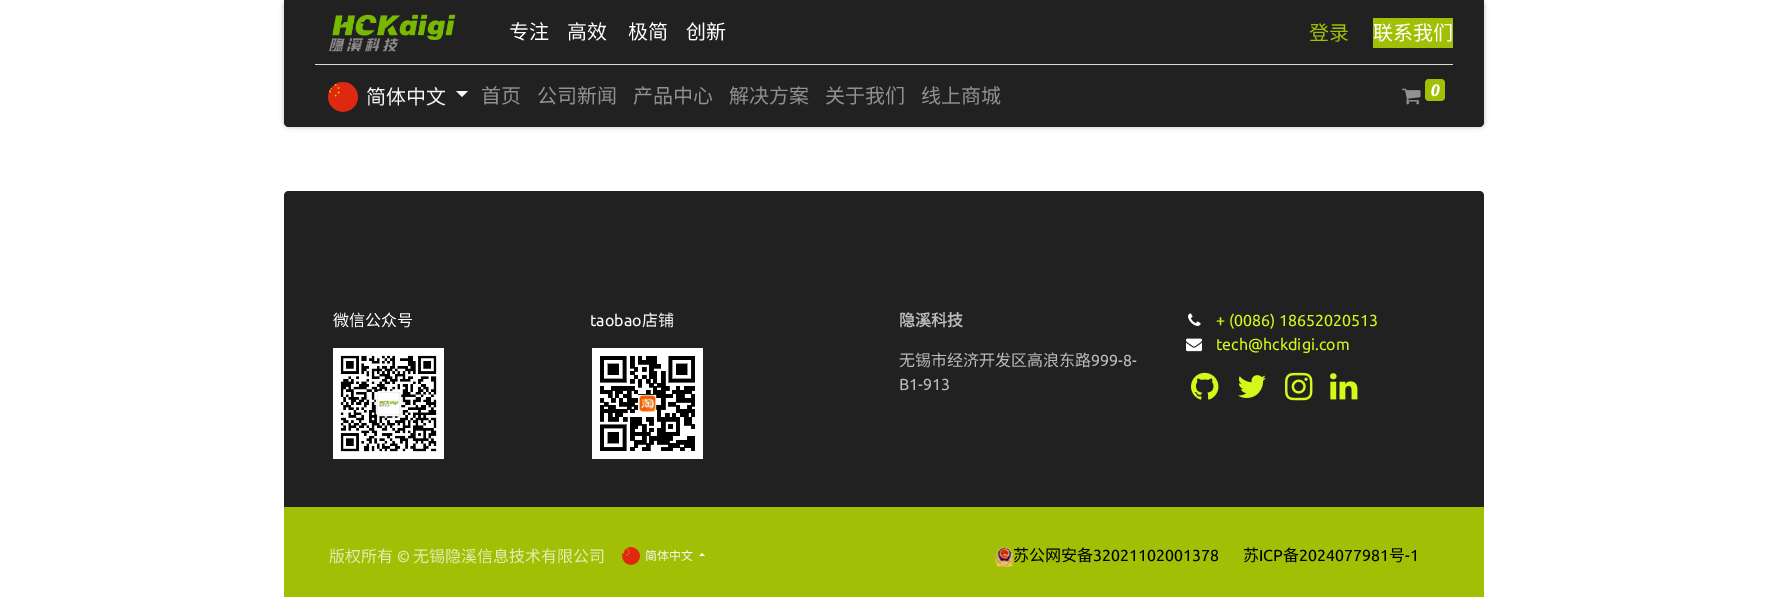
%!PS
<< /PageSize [1768 597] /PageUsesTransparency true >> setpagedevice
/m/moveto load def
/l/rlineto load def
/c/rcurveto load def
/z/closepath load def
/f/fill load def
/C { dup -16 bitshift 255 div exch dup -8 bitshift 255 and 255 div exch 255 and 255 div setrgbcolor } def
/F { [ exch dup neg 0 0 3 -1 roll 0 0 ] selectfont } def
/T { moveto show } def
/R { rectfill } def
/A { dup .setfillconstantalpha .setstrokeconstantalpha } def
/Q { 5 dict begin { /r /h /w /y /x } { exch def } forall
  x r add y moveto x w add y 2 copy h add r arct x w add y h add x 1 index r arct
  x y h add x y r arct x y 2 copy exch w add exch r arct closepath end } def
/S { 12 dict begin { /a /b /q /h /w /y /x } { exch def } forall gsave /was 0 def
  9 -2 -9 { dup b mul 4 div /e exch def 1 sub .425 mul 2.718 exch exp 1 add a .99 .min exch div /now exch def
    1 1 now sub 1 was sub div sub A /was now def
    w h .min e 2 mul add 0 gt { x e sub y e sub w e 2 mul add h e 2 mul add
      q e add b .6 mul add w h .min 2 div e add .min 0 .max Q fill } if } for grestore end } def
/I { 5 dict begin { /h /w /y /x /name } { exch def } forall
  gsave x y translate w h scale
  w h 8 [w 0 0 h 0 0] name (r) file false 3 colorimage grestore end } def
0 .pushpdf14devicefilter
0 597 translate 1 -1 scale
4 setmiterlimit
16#FFFFFF C
0 0 1768 597 R
16#000000 C
284 0 1200 127 5 2.5 .25 S
16#212121 C
284 0 m 1200 0 l 0 122 l 0 3 -2 5 -5 5 c -1190 0 l -3 0 -5 -2 -5 -5 c z f
(1.rgb) 329 14 127 38 I
/NotoSansCJKSC-Regular 20 F
16#FFFFFF C
(专注) 509 39 T
(高效) 567 39 T
(极简) 628 39 T
(创新) 686 39 T
16#A1C005 C
(登录) 1309 40 T
1373 18 80 30 R
16#FFFFFF C
(联系我们) 1373 40 T
16#D9D9D9 C
315 64 1138 1 R
(2.rgb) 328 82 30 30 I
16#F7F7F7 C
(简体中文) 366 104 T
456 91 m 12 0 l -6 6 l z f
16#909090 C
(首页) 481 103 T
(公司新闻) 537 103 T
(产品中心) 633 103 T
(解决方案) 729 103 T
(关于我们) 825 103 T
(线上商城) 921 103 T
(3.rgb) 1402 88 19 17 I
16#A1C005 C
1425 79 20 22 4 Q f
/Lobster-Bold 15 F
16#FFFFFF C
(0) 1431 96 T
16#212121 C
289 191 m 1190 0 l 3 0 5 2 5 5 c 0 401 l -1200 0 l 0 -401 l 0 -3 2 -5 5 -5 c z f
/NotoSansCJKSC-Regular 16 F
16#FFFFFF C
(微信公众号) 333 326 T
/Ubuntu-Regular 16 F
(taobao) 590 326 T
/NotoSansCJKSC-Regular 16 F
(店铺) 642 326 T
(4.rgb) 333 348 111 111 I
(5.rgb) 592 348 111 111 I
/NotoSansCJKSC-Bold 16 F
16#BCBCBC C
(隐溪科技) 899 326 T
/NotoSansCJKSC-Regular 16 F
(无锡市经济开发区高浪东路) 899 366 T
/Ubuntu-Regular 16 F
(999-8-) 1091 366 T
(B1-913) 899 390 T
(6.rgb) 1188 313 13 13 I
16#D4F919 C
(+ \(0086\) 18652020513) 1216 326 T
(7.rgb) 1186 338 16 14 I
(tech@hckdigi.com) 1216 350 T
(8.rgb) 1191 372 28 28 I
(9.rgb) 1238 375 28 23 I
(10.rgb) 1285 372 28 29 I
(11.rgb) 1330 373 28 27 I
16#A1C005 C
284 507 1200 90 R
/NotoSansCJKSC-Regular 16 F
16#E3ECB4 C
(版权所有) 329 562 T
/Ubuntu-Regular 16 F
(©) 397 562 T
/NotoSansCJKSC-Regular 16 F
(无锡隐溪信息技术有限公司) 413 562 T
(12.rgb) 622 547 18 18 I
/NotoSansCJKSC-Regular 12 F
16#F7F7F7 C
(简体中文) 645 560 T
705 556 m -6 0 l 3 -3 l z f
(13.rgb) 995 547 18 20 I
/NotoSansCJKSC-Regular 16 F
16#000000 C
(苏公网安备) 1013 561 T
/Ubuntu-Regular 16 F
(32021102001378) 1093 561 T
/NotoSansCJKSC-Regular 16 F
(苏) 1243 561 T
/Ubuntu-Regular 16 F
(ICP) 1259 561 T
/NotoSansCJKSC-Regular 16 F
(备) 1283 561 T
/Ubuntu-Regular 16 F
(2024077981) 1299 561 T
/NotoSansCJKSC-Regular 16 F
(号) 1389 561 T
/Ubuntu-Regular 16 F
(-1) 1405 561 T
.poppdf14devicefilter showpage
